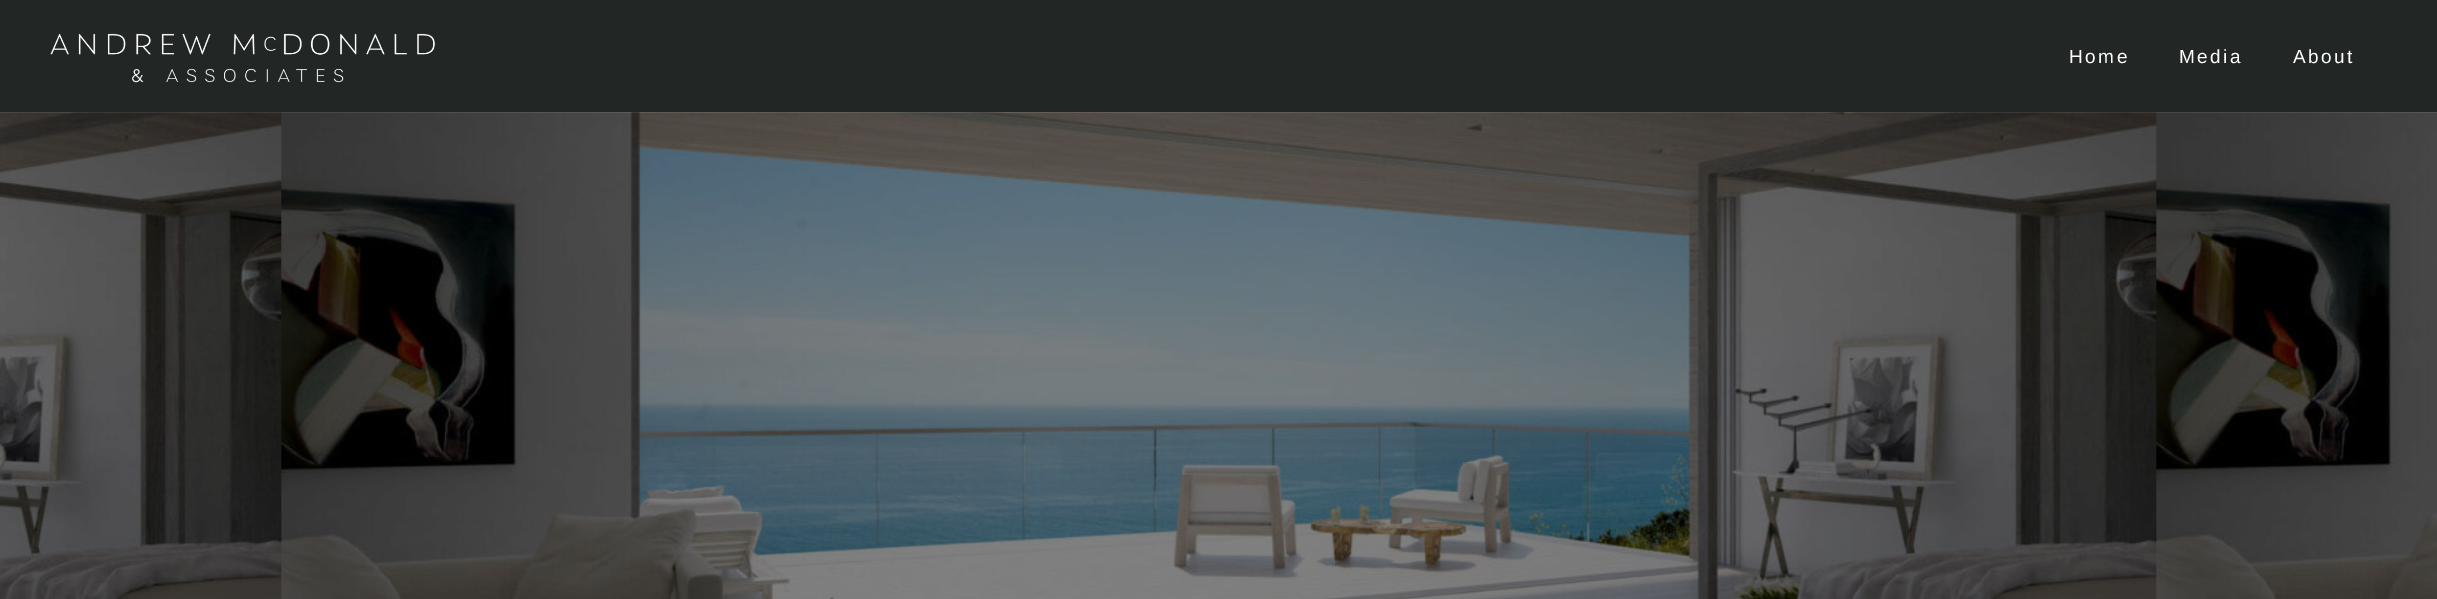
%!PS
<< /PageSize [2437 599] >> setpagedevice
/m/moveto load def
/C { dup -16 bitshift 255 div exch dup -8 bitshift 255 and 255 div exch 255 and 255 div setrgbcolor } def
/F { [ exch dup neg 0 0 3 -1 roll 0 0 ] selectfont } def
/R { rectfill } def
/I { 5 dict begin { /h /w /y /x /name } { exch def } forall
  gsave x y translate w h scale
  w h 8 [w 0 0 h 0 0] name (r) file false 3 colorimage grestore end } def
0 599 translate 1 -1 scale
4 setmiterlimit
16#222625 C
0 0 2437 599 R
(1.rgb) 50 33 385 50 I
/LiberationSans-Regular 19 F
16#FFFFFF C
2069 63 m 2.5 0 (Home) ashow
2179 63 m 2.5 0 (Media) ashow
2293 63 m 2.5 0 (About) ashow
(2.rgb) 0 112 2437 487 I
showpage
